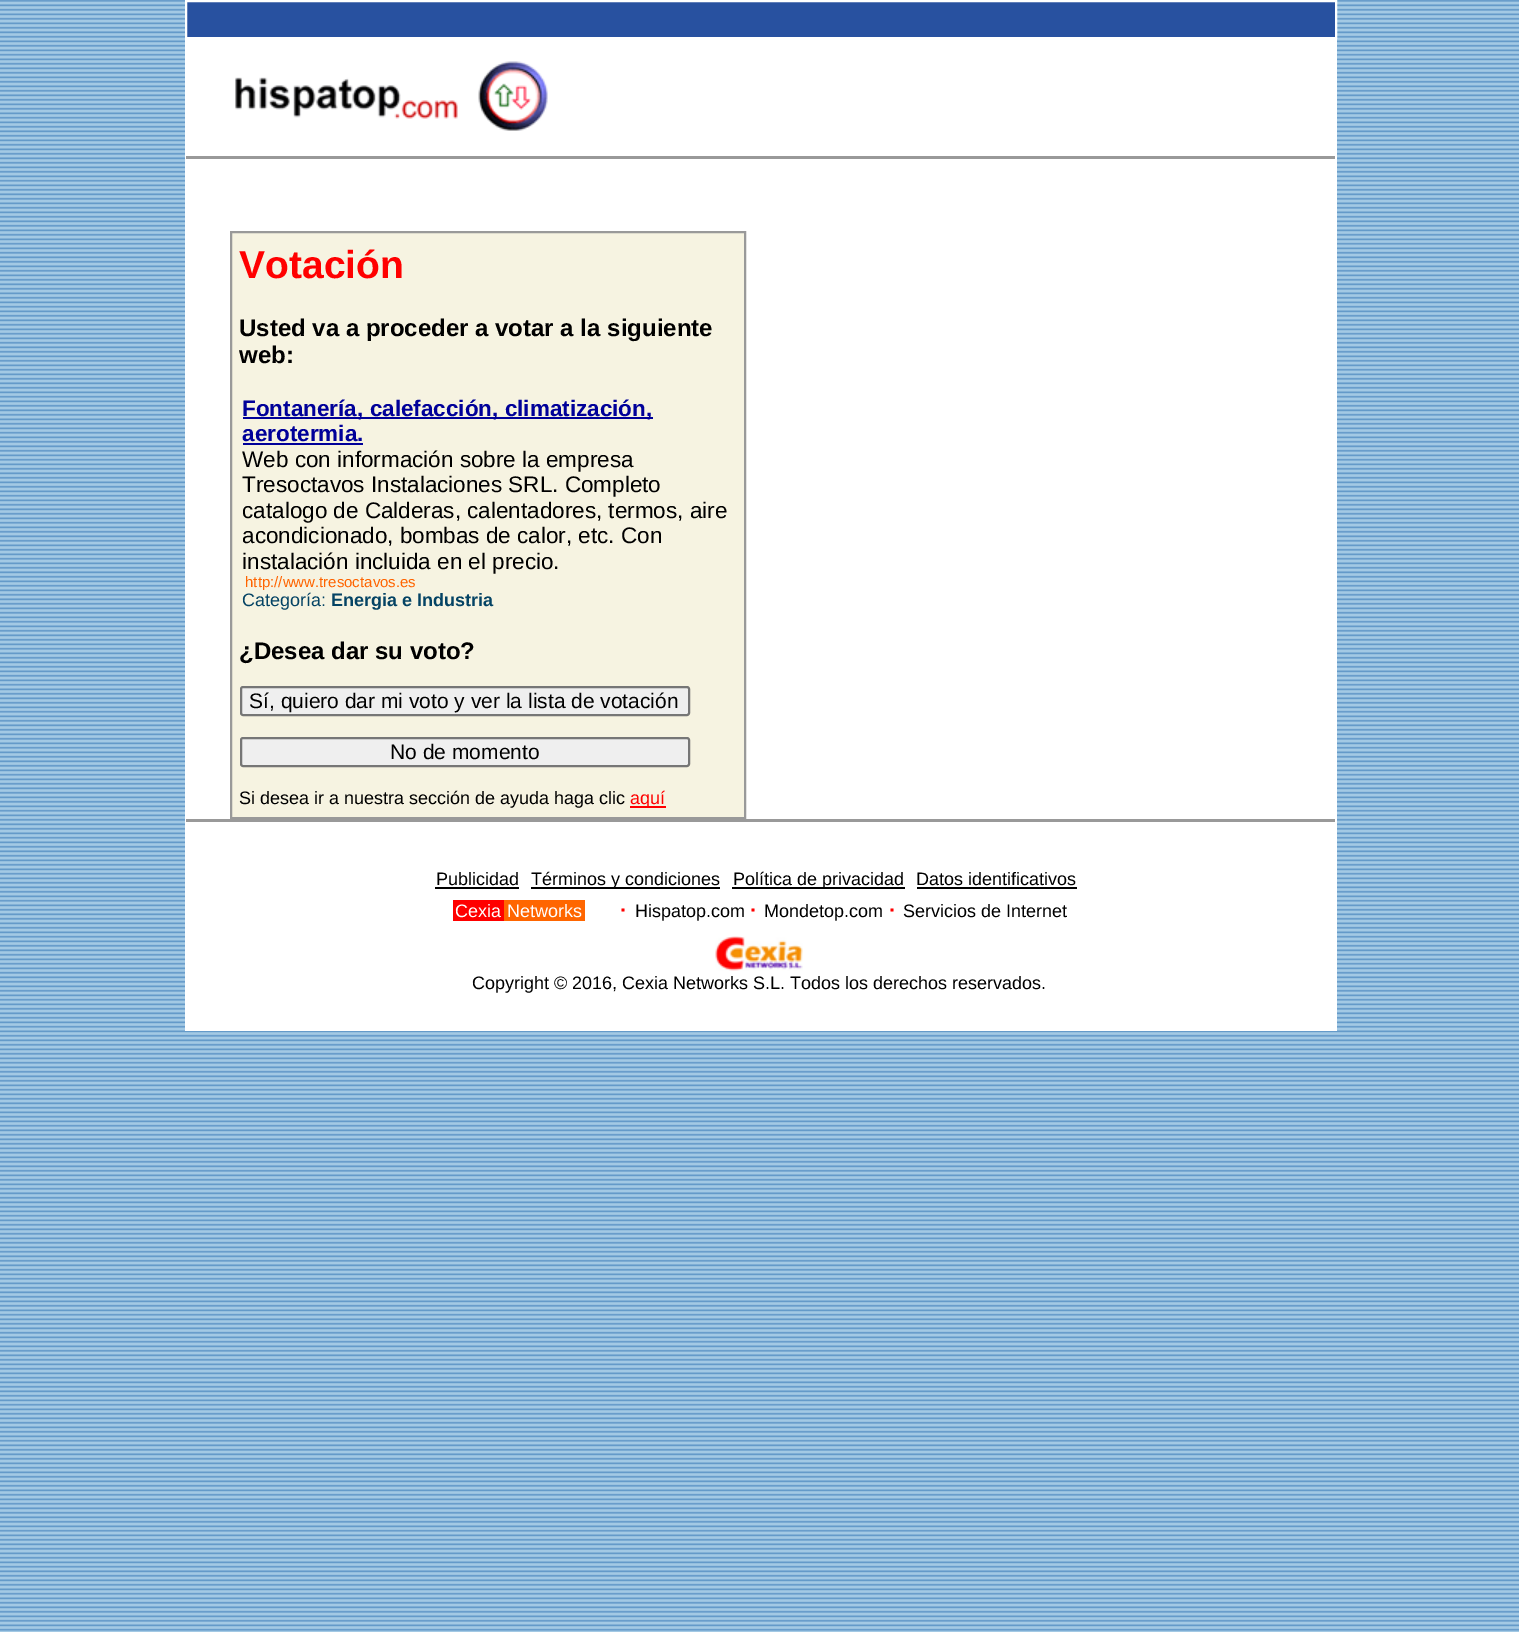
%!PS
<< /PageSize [1519 1632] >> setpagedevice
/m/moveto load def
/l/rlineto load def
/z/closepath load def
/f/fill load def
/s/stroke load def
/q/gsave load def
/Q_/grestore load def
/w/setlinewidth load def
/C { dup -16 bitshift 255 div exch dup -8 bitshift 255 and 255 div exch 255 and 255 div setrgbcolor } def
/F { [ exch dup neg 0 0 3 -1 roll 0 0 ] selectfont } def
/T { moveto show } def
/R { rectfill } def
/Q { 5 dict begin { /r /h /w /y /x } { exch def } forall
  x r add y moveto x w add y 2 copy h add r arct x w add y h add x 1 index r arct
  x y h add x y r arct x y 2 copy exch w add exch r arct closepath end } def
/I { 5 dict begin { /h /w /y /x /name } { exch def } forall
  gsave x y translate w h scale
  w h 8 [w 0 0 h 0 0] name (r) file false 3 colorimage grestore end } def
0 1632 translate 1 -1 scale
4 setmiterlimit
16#FFFFFF C
0 0 1519 1632 R
(1.rgb) 0 0 1519 1632 I
185 39 1152 992 R
16#2851A0 C
186 1 m 1150 0 l 0 37 l -1150 0 l z q f Q_
16#FFFFFF C
2 w
s
(2.rgb) 235 61 313 70 I
16#999999 C
186 156 1149 3 R
16#F6F3E1 C
231 232 m 514 0 l 0 586 l -514 0 l z q f Q_
16#999999 C
s
/LiberationSans-Bold 39 F
16#FF0000 C
(Votación) 239 278 T
/LiberationSans-Bold 24 F
16#000000 C
(Usted va a proceder a votar a la siguiente) 239 336 T
(web:) 239 363 T
16#000099 C
243 417 410 2 R
/LiberationSans-Bold 22.5 F
(Fontanería, calefacción, climatización,) 242 416 T
(aerotermia.) 242 441 T
243 443 120 2 R
/LiberationSans-Regular 22.5 F
16#000000 C
(Web con información sobre la empresa) 242 467 T
(Tresoctavos Instalaciones SRL. Completo) 242 492 T
(catalogo de Calderas, calentadores, termos, aire) 242 518 T
(acondicionado, bombas de calor, etc. Con) 242 543 T
(instalación incluida en el precio.) 242 569 T
/LiberationSans-Regular 15 F
16#FF6400 C
(http://www.tresoctavos.es) 245 587 T
/LiberationSans-Regular 18 F
16#044364 C
(Categoría:) 242 606 T
/LiberationSans-Bold 18 F
(Energia e Industria) 331 606 T
/LiberationSans-Bold 24 F
16#000000 C
(¿Desea dar su voto?) 239 659 T
16#EFEFEF C
241 687 448 28 2 Q q f Q_
16#767676 C
s
/LiberationSans-Regular 21 F
16#000000 C
(Sí, quiero dar mi voto y ver la lista de votación) 249 708 T
16#EFEFEF C
241 738 448 28 2 Q q f Q_
16#767676 C
s
16#000000 C
(No de momento) 390 759 T
/LiberationSans-Regular 18 F
(Si desea ir a nuestra sección de ayuda haga clic) 239 804 T
16#FF0000 C
630 806 36 2 R
(aquí) 630 804 T
16#999999 C
186 819 1149 3 R
16#000000 C
(Publicidad) 436 885 T
435 887 84 2 R
531 887 189 2 R
(Términos y condiciones) 531 885 T
732 887 173 2 R
(Política de privacidad) 733 885 T
(Datos identificativos) 916 885 T
917 887 160 2 R
16#FF0000 C
453 900 51 21 R
16#FFFFFF C
(Cexia) 455 917 T
16#FF6600 C
504 900 81 21 R
16#FFFFFF C
(Networks) 507 917 T
/LiberationSans-Bold 21 F
16#FF0000 C
(·) 620 917 T
/LiberationSans-Regular 18 F
16#000000 C
(Hispatop.com) 635 917 T
/LiberationSans-Bold 21 F
16#FF0000 C
(·) 750 917 T
/LiberationSans-Regular 18 F
16#000000 C
(Mondetop.com) 764 917 T
/LiberationSans-Bold 21 F
16#FF0000 C
(·) 889 917 T
/LiberationSans-Regular 18 F
16#000000 C
(Servicios de Internet) 903 917 T
(3.rgb) 715 936 88 35 I
(Copyright © 2016, Cexia Networks S.L. Todos los derechos reservados.) 472 989 T
showpage
